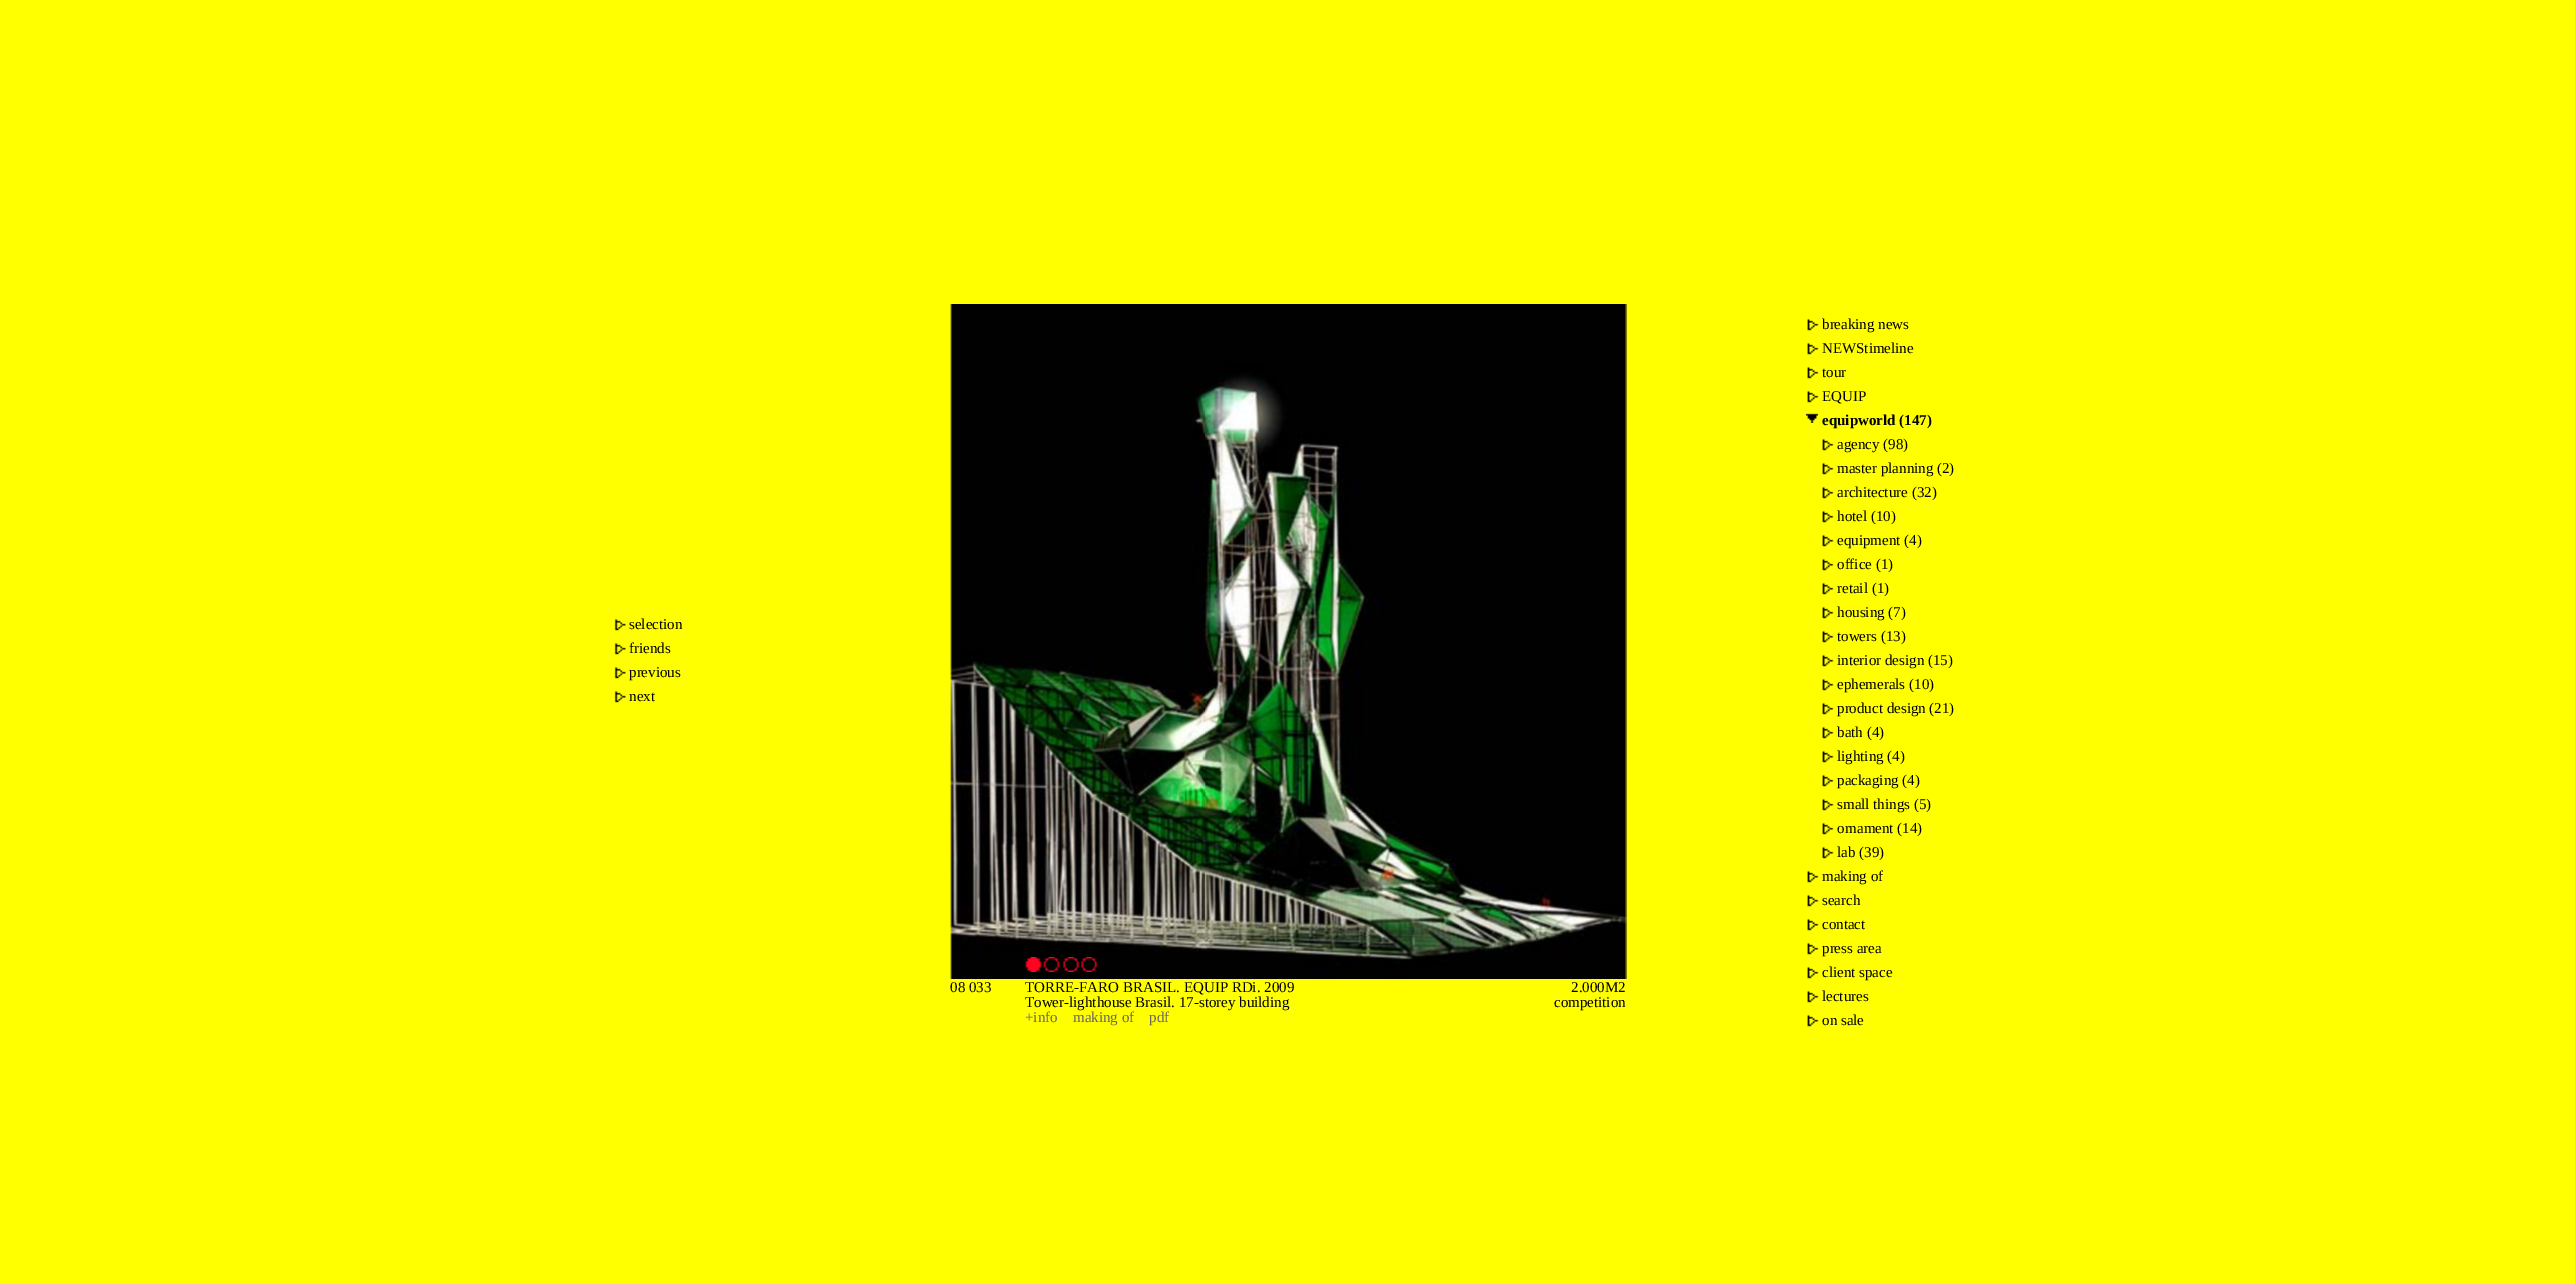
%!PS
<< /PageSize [2575 1284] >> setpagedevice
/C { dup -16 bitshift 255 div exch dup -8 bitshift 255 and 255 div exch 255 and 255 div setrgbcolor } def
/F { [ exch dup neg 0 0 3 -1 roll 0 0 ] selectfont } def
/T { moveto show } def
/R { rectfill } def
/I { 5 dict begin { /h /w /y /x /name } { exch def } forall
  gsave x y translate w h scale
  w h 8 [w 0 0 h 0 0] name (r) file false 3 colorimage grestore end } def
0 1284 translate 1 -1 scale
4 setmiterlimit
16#FFFF00 C
0 0 2575 1284 R
(1.rgb) 614 619 12 12 I
/LiberationSerif-Regular 15 F
16#000000 C
(selection) 629 629 T
(1.rgb) 614 643 12 12 I
(friends) 629 653 T
(1.rgb) 614 667 12 12 I
(previous) 629 677 T
(1.rgb) 614 691 12 12 I
(next) 629 701 T
(2.rgb) 1807 319 12 12 I
(breaking news) 1822 329 T
(2.rgb) 1807 343 12 12 I
(NEWStimeline) 1822 353 T
(2.rgb) 1807 367 12 12 I
(tour) 1822 377 T
(2.rgb) 1807 391 12 12 I
(EQUIP) 1822 401 T
(3.rgb) 1806 413 12 10 I
/LiberationSerif-Bold 15 F
(equipworld \(147\)) 1822 425 T
(2.rgb) 1822 439 12 12 I
/LiberationSerif-Regular 15 F
(agency \(98\)) 1837 449 T
(2.rgb) 1822 463 12 12 I
(master planning \(2\)) 1837 473 T
(2.rgb) 1822 487 12 12 I
(architecture \(32\)) 1837 497 T
(2.rgb) 1822 511 12 12 I
(hotel \(10\)) 1837 521 T
(2.rgb) 1822 535 12 12 I
(equipment \(4\)) 1837 545 T
(2.rgb) 1822 559 12 12 I
(office \(1\)) 1837 569 T
(2.rgb) 1822 583 12 12 I
(retail \(1\)) 1837 593 T
(2.rgb) 1822 607 12 12 I
(housing \(7\)) 1837 617 T
(2.rgb) 1822 631 12 12 I
(towers \(13\)) 1837 641 T
(2.rgb) 1822 655 12 12 I
(interior design \(15\)) 1837 665 T
(2.rgb) 1822 679 12 12 I
(ephemerals \(10\)) 1837 689 T
(2.rgb) 1822 703 12 12 I
(product design \(21\)) 1837 713 T
(2.rgb) 1822 727 12 12 I
(bath \(4\)) 1837 737 T
(2.rgb) 1822 751 12 12 I
(lighting \(4\)) 1837 761 T
(2.rgb) 1822 775 12 12 I
(packaging \(4\)) 1837 785 T
(2.rgb) 1822 799 12 12 I
(small things \(5\)) 1837 809 T
(2.rgb) 1822 823 12 12 I
(ornament \(14\)) 1837 833 T
(2.rgb) 1822 847 12 12 I
(lab \(39\)) 1837 857 T
(2.rgb) 1807 871 12 12 I
(making of) 1822 881 T
(2.rgb) 1807 895 12 12 I
(search) 1822 905 T
(2.rgb) 1807 919 12 12 I
(contact) 1822 929 T
(2.rgb) 1807 943 12 12 I
(press area) 1822 953 T
(2.rgb) 1807 967 12 12 I
(client space) 1822 977 T
(2.rgb) 1807 991 12 12 I
(lectures) 1822 1001 T
(2.rgb) 1807 1015 12 12 I
(on sale) 1822 1025 T
(4.rgb) 950 304 677 675 I
(5.rgb) 1025 957 17 15 I
(6.rgb) 1043 957 17 15 I
(7.rgb) 1063 957 16 15 I
(8.rgb) 1081 957 16 15 I
(08 033) 950 992 T
(TORRE-FARO BRASIL. EQUIP RDi. 2009) 1025 992 T
(Tower-lighthouse Brasil. 17-storey building) 1025 1007 T
16#666666 C
(+info) 1025 1022 T
(making of) 1073 1022 T
(pdf) 1149 1022 T
16#000000 C
(2.000M2) 1571 992 T
(competition) 1554 1007 T
showpage
